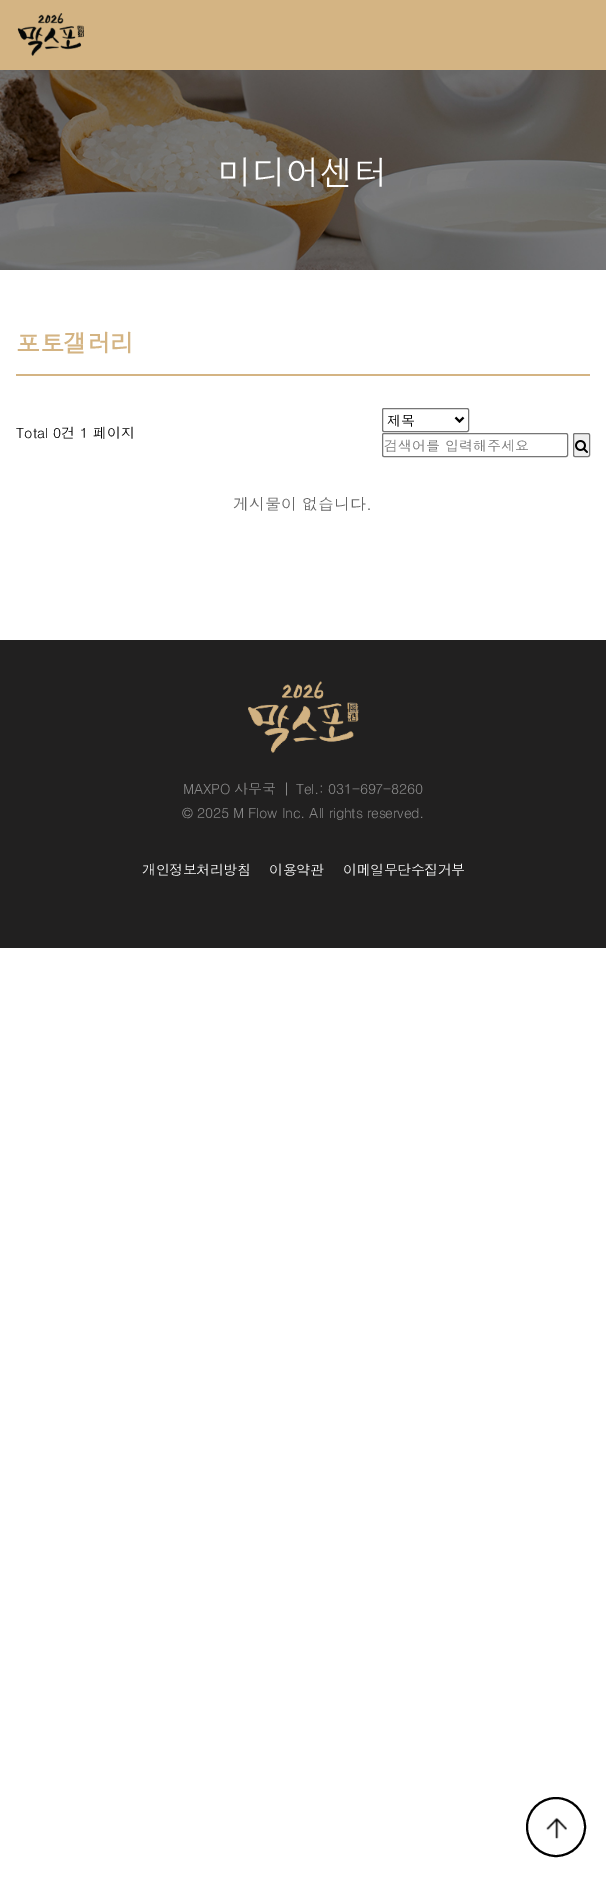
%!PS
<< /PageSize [606 1877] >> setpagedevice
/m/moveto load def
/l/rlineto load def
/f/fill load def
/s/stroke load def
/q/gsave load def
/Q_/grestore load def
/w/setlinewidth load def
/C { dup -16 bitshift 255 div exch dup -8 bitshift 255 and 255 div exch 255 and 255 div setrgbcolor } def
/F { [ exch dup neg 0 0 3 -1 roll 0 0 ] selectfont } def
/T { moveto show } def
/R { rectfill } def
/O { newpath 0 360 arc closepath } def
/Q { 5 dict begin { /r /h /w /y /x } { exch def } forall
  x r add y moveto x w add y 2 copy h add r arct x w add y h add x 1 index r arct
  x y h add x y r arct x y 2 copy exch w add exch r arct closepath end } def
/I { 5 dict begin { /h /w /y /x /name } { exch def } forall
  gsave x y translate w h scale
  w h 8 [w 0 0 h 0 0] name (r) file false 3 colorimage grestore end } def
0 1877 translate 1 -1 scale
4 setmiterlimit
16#FFFFFF C
0 0 606 1877 R
16#D4B483 C
0 0 606 70 R
(1.rgb) 17 13 67 43 I
(2.rgb) 0 70 606 200 I
/Dotum-Regular 34 F
16#FFFFFF C
(미디어센터) 218 185 T
16#D4B483 C
16 374 574 2 R
/Dotum-Bold 24 F
16 352 m -.5 0 (포토갤러리) ashow
/Dotum-Regular 14 F
16#000000 C
(Total 0건 1 페이지) 16 438 T
16#767676 C
382.5 408.5 86 23 1.5 Q s
16#000000 C
2 w
455.5 417.5 m 4 4 l 4 -4 l s
(제목) 387 426 T
16#767676 C
1 w
382.5 433.5 185 23 1.5 Q s
16#757575 C
(검색어를 입력해주세요) 384 451 T
16#EFEFEF C
573.5 433.5 16 23 1.5 Q q f Q_
16#767676 C
s
(3.rgb) 575 440 13 13 I
/Dotum-Regular 16 F
16#666666 C
(게시물이 없습니다.) 233 510 T
16#212020 C
0 640 606 308 R
(4.rgb) 248 681 111 72 I
/Dotum-Regular 14 F
16#888888 C
183 794 m -.3 0 (MAXPO 사무국) ashow
283 794 m -.3 0 (|) ashow
296 794 m -.3 0 (Tel.: 031-697-8260) ashow
182 818 m -.3 0 (© 2025 M Flow Inc. All rights reserved.) ashow
16#FFFFFF C
142 875 m -.5 0 (개인정보처리방침) ashow
269 875 m -.5 0 (이용약관) ashow
343 875 m -.5 0 (이메일무단수집거부) ashow
16#000000 C
2 w
556 1827 29 O s
(5.rgb) 546 1817 21 22 I
showpage
